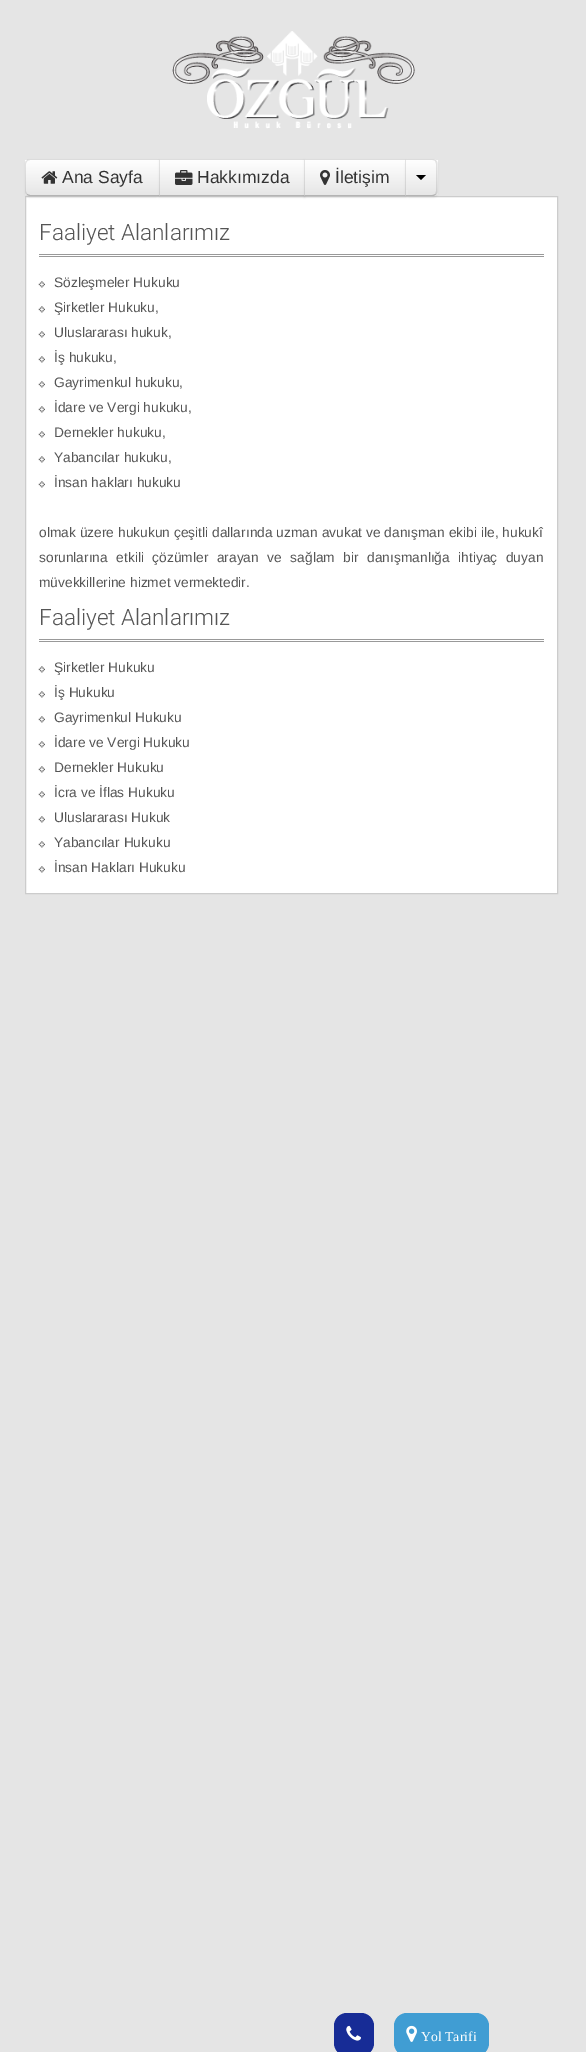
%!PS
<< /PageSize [586 2052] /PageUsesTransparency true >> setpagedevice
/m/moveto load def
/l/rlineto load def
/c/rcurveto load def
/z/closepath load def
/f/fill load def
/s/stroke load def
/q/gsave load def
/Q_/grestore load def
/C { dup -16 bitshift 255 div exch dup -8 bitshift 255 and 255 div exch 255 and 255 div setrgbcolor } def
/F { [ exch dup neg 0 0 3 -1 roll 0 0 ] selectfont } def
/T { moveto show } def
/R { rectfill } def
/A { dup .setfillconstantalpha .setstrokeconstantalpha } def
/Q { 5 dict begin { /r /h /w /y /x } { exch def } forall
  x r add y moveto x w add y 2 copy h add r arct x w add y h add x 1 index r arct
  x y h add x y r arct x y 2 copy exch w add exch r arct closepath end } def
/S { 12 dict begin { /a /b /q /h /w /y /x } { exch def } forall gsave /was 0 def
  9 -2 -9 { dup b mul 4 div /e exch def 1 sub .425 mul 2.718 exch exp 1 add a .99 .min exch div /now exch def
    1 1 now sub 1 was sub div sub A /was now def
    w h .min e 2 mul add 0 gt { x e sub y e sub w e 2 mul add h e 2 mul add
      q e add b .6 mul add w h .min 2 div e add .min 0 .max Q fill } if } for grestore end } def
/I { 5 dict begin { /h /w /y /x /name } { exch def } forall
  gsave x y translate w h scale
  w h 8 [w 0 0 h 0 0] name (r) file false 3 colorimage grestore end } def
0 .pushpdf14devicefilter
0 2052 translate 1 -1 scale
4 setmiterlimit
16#E5E5E5 C
0 0 586 2052 R
(1.rgb) 172 31 243 98 I
16#FFFFFF C
25.5 196.5 m 532 0 l 0 697 l -532 0 l z q f Q_
16#CCCCCC C
s
16#000000 C
25 160 135 38 5 1 .05 S
16#F5F5F5 C
30 159 m 130 0 l 0 37 l -130 0 l -3 0 -5 -2 -5 -5 c 0 -27 l 0 -3 2 -5 5 -5 c z f
q
30 159 m 130 0 l 0 37 l -130 0 l -3 0 -5 -2 -5 -5 c 0 -27 l 0 -3 2 -5 5 -5 c z clip newpath
q 25 160 m 134 0 l 0 35 l -134 0 l z clip newpath
<< /ShadingType 2 /ColorSpace /DeviceRGB /Coords [93 160 93 195] /Extend [true true] /Function << /FunctionType 2 /Domain [0 1] /C0 [1 1 1] /C1 [.902 .902 .902] /N 1 >> >> shfill Q_
Q_
0.1 A
16#000000 C
30 159 m -1 0 -3 0 -3 1 c 0 1 l 3 -1 l 129 0 l 1 -1 l z f
1 A
16#B3B3B3 C
160 196 m -131 0 l -2 -1 l 0 -1 l 3 1 l 129 0 l z f
0.1 A
16#000000 C
25 164 m 0 27 l 0 1.5 .5 3 1.5 3.5 c 1 -.5 l -1 -1 -1.5 -2 -1.5 -3 c 0 -27 l 0 -1 .5 -2 1.5 -3 c -1 -.5 l -1 .5 -1.5 2 -1.5 3.5 c z f
1 A
(2.rgb) 41 171 17 13 I
/LiberationSans-Regular 17.5 F
16#333333 C
(Ana Sayfa) 62 183 T
16#000000 C
159 160 146 38 0 1 .05 S
16#F5F5F5 C
159 159 1 37 R
q 159 160 m 145 0 l 0 35 l -145 0 l z clip newpath
<< /ShadingType 2 /ColorSpace /DeviceRGB /Coords [232 160 232 195] /Extend [true true] /Function << /FunctionType 2 /Domain [0 1] /C0 [1 1 1] /C1 [.902 .902 .902] /N 1 >> >> shfill Q_
16#DDDDDD C
159 159 m 146 0 l -1 1 l -144 0 l z f
16#B3B3B3 C
305 196 m -146 0 l 1 -1 l 144 0 l z f
0.1 A
16#000000 C
159 196 m 0 -37 l 1 1 l 0 35 l z f
1 A
(3.rgb) 175 170 18 15 I
16#333333 C
(Hakkımızda) 197 183 T
16#000000 C
304 160 102 38 0 1 .05 S
16#F5F5F5 C
304 159 1 37 R
q 304 160 m 101 0 l 0 35 l -101 0 l z clip newpath
<< /ShadingType 2 /ColorSpace /DeviceRGB /Coords [355 160 355 195] /Extend [true true] /Function << /FunctionType 2 /Domain [0 1] /C0 [1 1 1] /C1 [.902 .902 .902] /N 1 >> >> shfill Q_
16#DDDDDD C
304 159 m 102 0 l -1 1 l -100 0 l z f
16#B3B3B3 C
406 196 m -102 0 l 1 -1 l 100 0 l z f
0.1 A
16#000000 C
304 196 m 0 -37 l 1 1 l 0 35 l z f
1 A
(4.rgb) 320 170 10 15 I
16#333333 C
(İletişim) 335 183 T
16#000000 C
405 160 33 38 5 1 .05 S
16#F5F5F5 C
405 159 m 28 0 l 3 0 5 2 5 5 c 0 27 l 0 3 -2 5 -5 5 c -28 0 l z f
q
405 159 m 28 0 l 3 0 5 2 5 5 c 0 27 l 0 3 -2 5 -5 5 c -28 0 l z clip newpath
q 405 160 m 33 0 l 0 35 l -33 0 l z clip newpath
<< /ShadingType 2 /ColorSpace /DeviceRGB /Coords [421 160 421 195] /Extend [true true] /Function << /FunctionType 2 /Domain [0 1] /C0 [1 1 1] /C1 [.902 .902 .902] /N 1 >> >> shfill Q_
Q_
0.12 A
16#FFFFFF C
406 190 2 5 R
0.1 A
16#000000 C
436 160.5 m -1 -1 -2 -1.5 -3.5 -1.5 c -27.5 0 l 1 1 l 26.5 0 l 1 0 2 .5 2.5 1 c z f
436 160.5 m 1 .5 1.5 2 1.5 3.5 c 0 27 l 0 1.5 -.5 3 -1.5 3.5 c -1 -.5 l .5 -1 1 -2 1 -3 c 0 -27 l 0 -1 -.5 -2 -1 -3 c z f
1 A
16#B3B3B3 C
436 194.5 m -1 1 -2 1.5 -3.5 1.5 c -27.5 0 l 1 -1 l 26.5 0 l 1 0 2 -.5 2.5 -1 c z f
0.1 A
16#000000 C
406 160 m 0 35 l -1 1 l 0 -37 l z f
1 A
416 175 m 10 0 l -5 5 l z f
16#999999 C
39 254 505 1 R
39 256 505 1 R
/Roboto-Light 22.5 F
16#555555 C
(Faaliyet Alanlarımız) 39 240 T
(5.rgb) 38 281 7 7 I
/LiberationSans-Regular 13.75 F
(Sözleşmeler Hukuku) 54 287 T
(5.rgb) 38 306 7 7 I
(Şirketler Hukuku,) 54 312 T
(5.rgb) 38 331 7 7 I
(Uluslararası hukuk,) 54 337 T
(5.rgb) 38 356 7 7 I
(İş hukuku,) 54 362 T
(5.rgb) 38 381 7 7 I
(Gayrimenkul hukuku,) 54 387 T
(5.rgb) 38 406 7 7 I
(İdare ve Vergi hukuku,) 54 412 T
(5.rgb) 38 431 7 7 I
(Dernekler hukuku,) 54 437 T
(5.rgb) 38 456 7 7 I
(Yabancılar hukuku,) 54 462 T
(5.rgb) 38 481 7 7 I
(İnsan hakları hukuku) 54 487 T
39 537 m .1 0 32 (olmak üzere hukukun çeşitli dallarında uzman avukat ve danışman ekibi ile, hukukî) widthshow
39 562 m 4.75 0 32 (sorunlarına etkili çözümler arayan ve sağlam bir danışmanlığa ihtiyaç duyan) widthshow
(müvekkillerine hizmet vermektedir.) 39 587 T
16#999999 C
39 639 505 1 R
39 641 505 1 R
/Roboto-Light 22.5 F
16#555555 C
(Faaliyet Alanlarımız) 39 625 T
(5.rgb) 38 666 7 7 I
/LiberationSans-Regular 13.75 F
(Şirketler Hukuku) 54 672 T
(5.rgb) 38 691 7 7 I
(İş Hukuku) 54 697 T
(5.rgb) 38 716 7 7 I
(Gayrimenkul Hukuku) 54 722 T
(5.rgb) 38 741 7 7 I
(İdare ve Vergi Hukuku) 54 747 T
(5.rgb) 38 766 7 7 I
(Dernekler Hukuku) 54 772 T
(5.rgb) 38 791 7 7 I
(İcra ve İflas Hukuku) 54 797 T
(5.rgb) 38 816 7 7 I
(Uluslararası Hukuk) 54 822 T
(5.rgb) 38 841 7 7 I
(Yabancılar Hukuku) 54 847 T
(5.rgb) 38 866 7 7 I
(İnsan Hakları Hukuku) 54 872 T
16#172C96 C
334 2013 40 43 13 Q f
(6.rgb) 346 2025 15 16 I
16#409DD3 C
394 2013 95 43 13 Q f
(7.rgb) 406 2025 11 17 I
/LiberationSerif-Regular 13.75 F
16#FFFFFF C
(Yol Tarifi) 421 2041 T
.poppdf14devicefilter showpage
